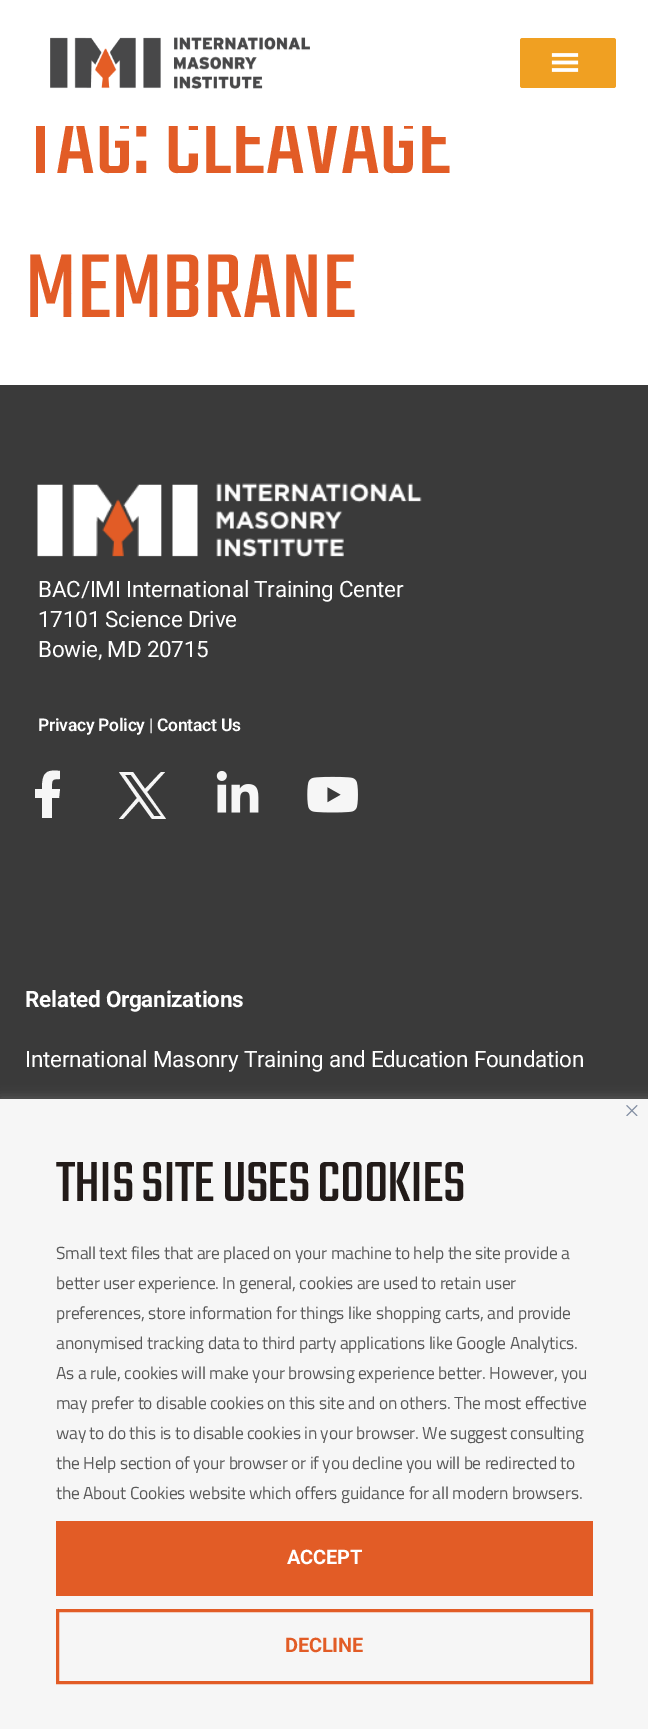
%!PS
<< /PageSize [648 1729] /PageUsesTransparency true >> setpagedevice
/m/moveto load def
/l/rlineto load def
/c/rcurveto load def
/z/closepath load def
/f/fill load def
/w/setlinewidth load def
/C { dup -16 bitshift 255 div exch dup -8 bitshift 255 and 255 div exch 255 and 255 div setrgbcolor } def
/F { [ exch dup neg 0 0 3 -1 roll 0 0 ] selectfont } def
/T { moveto show } def
/R { rectfill } def
/A { dup .setfillconstantalpha .setstrokeconstantalpha } def
/Q { 5 dict begin { /r /h /w /y /x } { exch def } forall
  x r add y moveto x w add y 2 copy h add r arct x w add y h add x 1 index r arct
  x y h add x y r arct x y 2 copy exch w add exch r arct closepath end } def
/S { 12 dict begin { /a /b /q /h /w /y /x } { exch def } forall gsave /was 0 def
  9 -2 -9 { dup b mul 4 div /e exch def 1 sub .425 mul 2.718 exch exp 1 add a .99 .min exch div /now exch def
    1 1 now sub 1 was sub div sub A /was now def
    w h .min e 2 mul add 0 gt { x e sub y e sub w e 2 mul add h e 2 mul add
      q e add b .6 mul add w h .min 2 div e add .min 0 .max Q fill } if } for grestore end } def
/I { 5 dict begin { /h /w /y /x /name } { exch def } forall
  gsave x y translate w h scale
  w h 8 [w 0 0 h 0 0] name (r) file false 3 colorimage grestore end } def
0 .pushpdf14devicefilter
0 1729 translate 1 -1 scale
4 setmiterlimit
16#FFFFFF C
0 0 648 1729 R
/Teko-Regular 100 F
16#E25C26 C
(TAG: CLEAVAGE) 25 173 T
16#FFFFFF C
25 110 425 16 R
(1.rgb) 50 37 260 52 I
16#F0A022 C
520 38 96 50 2.5 Q f
(2.rgb) 551 53 28 19 I
16#E25C26 C
(MEMBRANE) 25 317 T
16#3A3A3A C
0 385 648 714 R
(3.rgb) 37 483 385 75 I
/Roboto-Regular 22.5 F
16#FFFFFF C
38 597 m -.25 0 (BAC/IMI International Training Center) ashow
38 627 m -.25 0 (17101 Science Drive) ashow
38 657 m -.25 0 (Bowie, MD 20715) ashow
/Roboto-SemiBold 17.5 F
38 731 m -.25 0 (Privacy Policy) ashow
/Roboto-Regular 17.5 F
149 731 m -.25 0 (|) ashow
/Roboto-SemiBold 17.5 F
157 731 m -.25 0 (Contact Us) ashow
16#F6F6F6 C
59 798 m -7 0 l 0 20 l -10 0 l 0 -20 l -7 0 l 0 -9 l 7 0 l 0 -15 3 -20 18 -18 c 0 8 l -9 0 -8 1 -8 10 c 8 0 l z f
147 792 m 18 -20 l -4 0 l -16 17 l -12 -17 l -14 0 l 18 26 l -18 21 l 4 0 l 16 -18 l 13 18 l 14 0 l z 125 775 m 6 0 l 30 41 l -7 0 l z f
(4.rgb) 216 770 43 43 I
(5.rgb) 307 776 51 37 I
/Roboto-Bold 22.5 F
16#FFFFFF C
25 1007 m -.25 0 (Related Organizations) ashow
/Roboto-Regular 22.5 F
25 1067 m -.25 0 (International Masonry Training and Education Foundation) ashow
16#ACABAB C
0 1098 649 631 0 6 .3 S
16#F6F6F6 C
0 1099 648 630 R
(6.rgb) 626 1105 12 11 I
/Teko-Regular 62.5 F
16#221B19 C
56 1201 m -1 0 (THIS SITE USES COOKIES) ashow
/TitilliumWeb-Regular 17.5 F
16#5A5A5A C
56 1259 m -.25 0 (Small text files that are placed on your machine to help the site provide a) ashow
56 1289 m -.25 0 (better user experience. In general, cookies are used to retain user) ashow
56 1319 m -.25 0 (preferences, store information for things like shopping carts, and provide) ashow
56 1349 m -.25 0 (anonymised tracking data to third party applications like Google Analytics.) ashow
56 1379 m -.25 0 (As a rule, cookies will make your browsing experience better. However, you) ashow
56 1409 m -.25 0 (may prefer to disable cookies on this site and on others. The most effective) ashow
56 1439 m -.25 0 (way to do this is to disable cookies in your browser. We suggest consulting) ashow
56 1469 m -.25 0 (the Help section of your browser or if you decline you will be redirected to) ashow
56 1499 m -.25 0 (the About Cookies website which offers guidance for all modern browsers.) ashow
16#E25C26 C
56 1521 537 75 R
/Roboto-Bold 20 F
16#FFFFFF C
287 1564 m -.25 0 (ACCEPT) ashow
16#E25C26 C
3 w
57.5 1610.5 534 72 rectstroke
285 1652 m -.25 0 (DECLINE) ashow
.poppdf14devicefilter showpage
